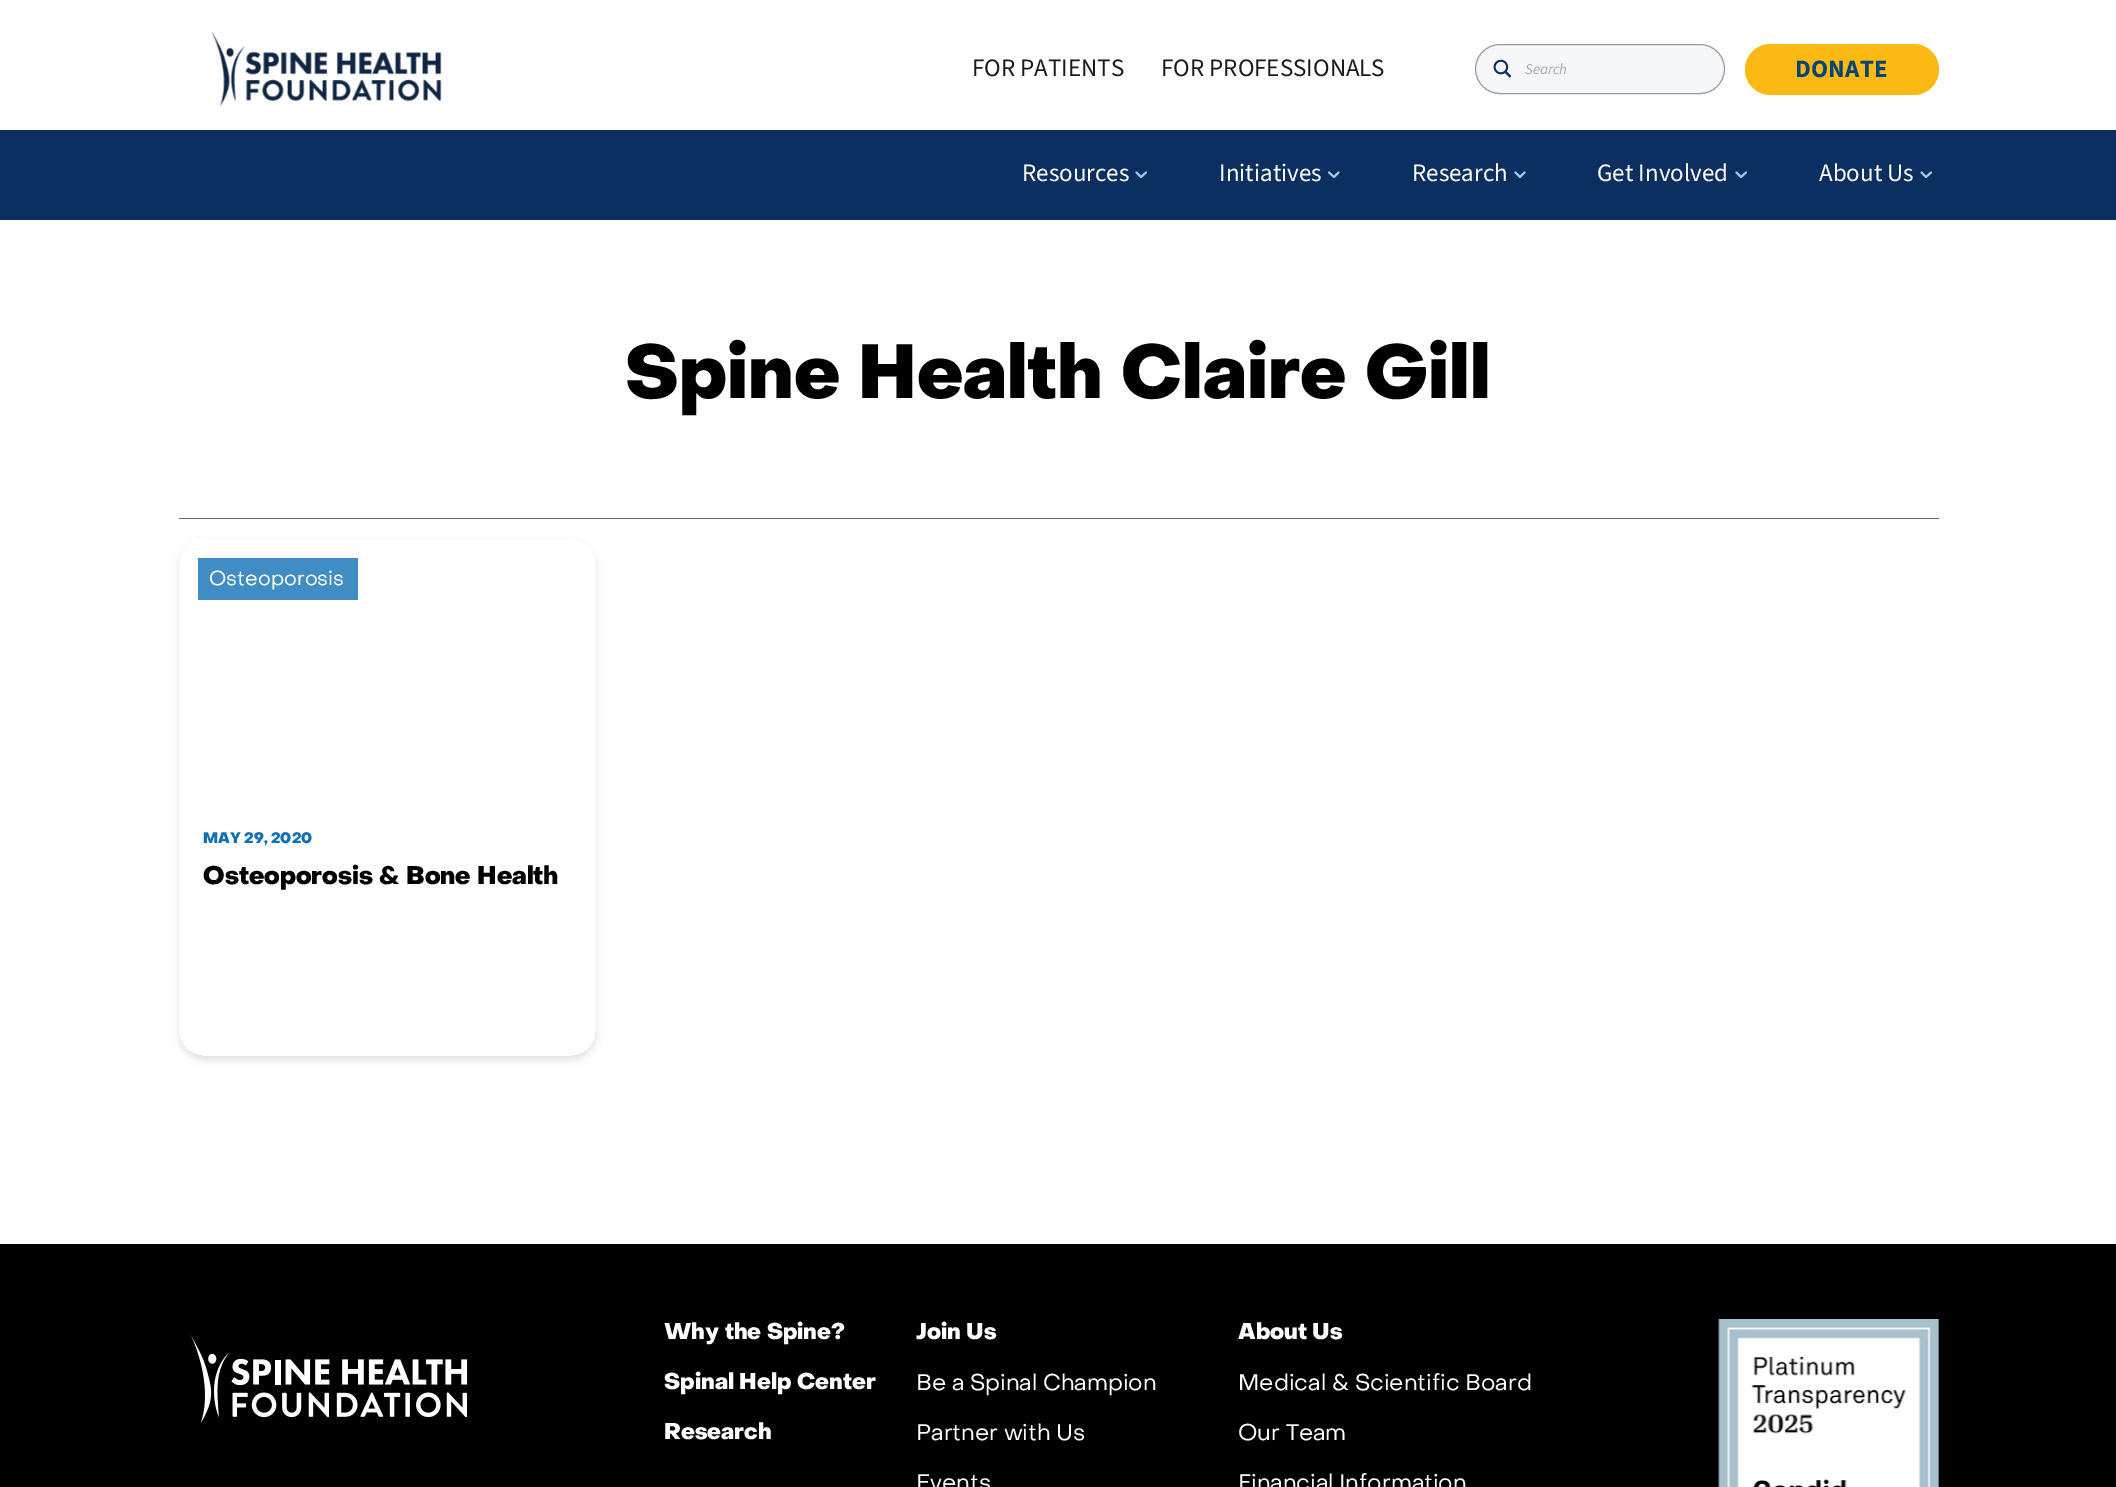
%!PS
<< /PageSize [2116 1487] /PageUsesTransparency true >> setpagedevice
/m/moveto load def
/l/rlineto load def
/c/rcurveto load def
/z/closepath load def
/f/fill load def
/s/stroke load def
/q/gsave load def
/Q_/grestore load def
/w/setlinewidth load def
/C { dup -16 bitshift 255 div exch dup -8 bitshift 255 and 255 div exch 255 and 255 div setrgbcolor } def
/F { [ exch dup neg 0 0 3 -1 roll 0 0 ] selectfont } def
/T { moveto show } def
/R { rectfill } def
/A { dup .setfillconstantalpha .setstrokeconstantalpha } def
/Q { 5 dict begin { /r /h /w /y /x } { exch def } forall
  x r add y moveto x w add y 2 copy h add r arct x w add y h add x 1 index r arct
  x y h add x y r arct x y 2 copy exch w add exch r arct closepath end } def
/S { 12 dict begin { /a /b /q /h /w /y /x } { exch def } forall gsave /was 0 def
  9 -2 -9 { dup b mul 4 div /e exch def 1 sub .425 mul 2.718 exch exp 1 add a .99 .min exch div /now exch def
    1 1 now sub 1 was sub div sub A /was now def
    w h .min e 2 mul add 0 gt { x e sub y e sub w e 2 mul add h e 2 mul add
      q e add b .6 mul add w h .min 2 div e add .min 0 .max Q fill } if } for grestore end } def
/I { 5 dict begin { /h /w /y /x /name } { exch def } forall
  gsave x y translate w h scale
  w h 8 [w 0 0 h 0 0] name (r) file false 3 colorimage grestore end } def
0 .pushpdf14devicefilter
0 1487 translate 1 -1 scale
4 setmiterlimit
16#FFFFFF C
0 0 2116 1487 R
(1.rgb) 211 31 231 75 I
/SourceSans3-Regular 25 F
16#1A1A1A C
(FOR PATIENTS) 972 76 T
(FOR PROFESSIONALS) 1161 76 T
16#F5F7FA C
1475.5 44.5 249 49 24.5 Q q f Q_
16#9A9A9A C
s
(2.rgb) 1493 59 18 19 I
/SourceSans3-Italic 15 F
16#A8A8A8 C
(Search) 1525 74 T
16#FDB913 C
1745 44 194 51 25.5 Q f
/SourceSans3-Bold 25 F
16#064473 C
1795 77 m .25 0 (DONATE) ashow
16#0B2F60 C
0 130 2116 90 R
/SourceSans3-Regular 25 F
16#FFFFFF C
(Resources) 1022 181 T
16#9ACDED C
1.9 w
1 setlinecap
1 setlinejoin
1136.5 172.5 m 4.5 4.5 l 5 -4.5 l s
16#FFFFFF C
(Initiatives) 1219 181 T
16#9ACDED C
1329 172.5 m 5 4.5 l 4.5 -4.5 l s
16#FFFFFF C
(Research) 1412 181 T
16#9ACDED C
1515.5 172.5 m 4.5 4.5 l 4.5 -4.5 l s
16#FFFFFF C
(Get Involved) 1597 181 T
16#9ACDED C
1736.5 172.5 m 4.5 4.5 l 5 -4.5 l s
16#FFFFFF C
(About Us) 1819 181 T
16#9ACDED C
1921.5 172.5 m 4.5 4.5 l 5 -4.5 l s
/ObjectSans-Black 75 F
16#000000 C
(Spine Health Claire Gill) 625 398 T
16#5B6574 C
179 518 1760 1 R
q
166 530 m 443 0 l 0 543 l -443 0 l z 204 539 m 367 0 l 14 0 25 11 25 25 c 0 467 l 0 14 -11 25 -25 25 c -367 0 l -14 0 -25 -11 -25 -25 c 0 -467 l 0 -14 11 -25 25 -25 c z eoclip newpath
16#5C6473 C
179 543 417 517 25 4 .2 S
Q_
16#408CC5 C
198 558 160 42 R
/ObjectSans-Regular 20 F
16#FFFFFF C
(Osteoporosis) 209 585 T
/ObjectSans-Black 15 F
16#106FB6 C
(MAY 29, 2020) 203 843 T
/ObjectSans-Black 25 F
16#000000 C
(Osteoporosis & Bone Health) 203 884 T
0 1244 2116 243 R
(3.rgb) 190 1334 278 89 I
/ObjectSans-Black 22.5 F
16#FFFFFF C
(Why the Spine?) 664 1339 T
(Spinal Help Center) 664 1389 T
(Research) 664 1439 T
(Join Us) 916 1339 T
/ObjectSans-Regular 22.5 F
(Be a Spinal Champion) 916 1390 T
(Partner with Us) 916 1440 T
(Events) 916 1490 T
/ObjectSans-Black 22.5 F
(About Us) 1238 1339 T
/ObjectSans-Regular 22.5 F
(Medical & Scientific Board) 1238 1390 T
(Our Team) 1238 1440 T
(Financial Information) 1238 1490 T
(4.rgb) 1718 1319 221 168 I
.poppdf14devicefilter showpage
